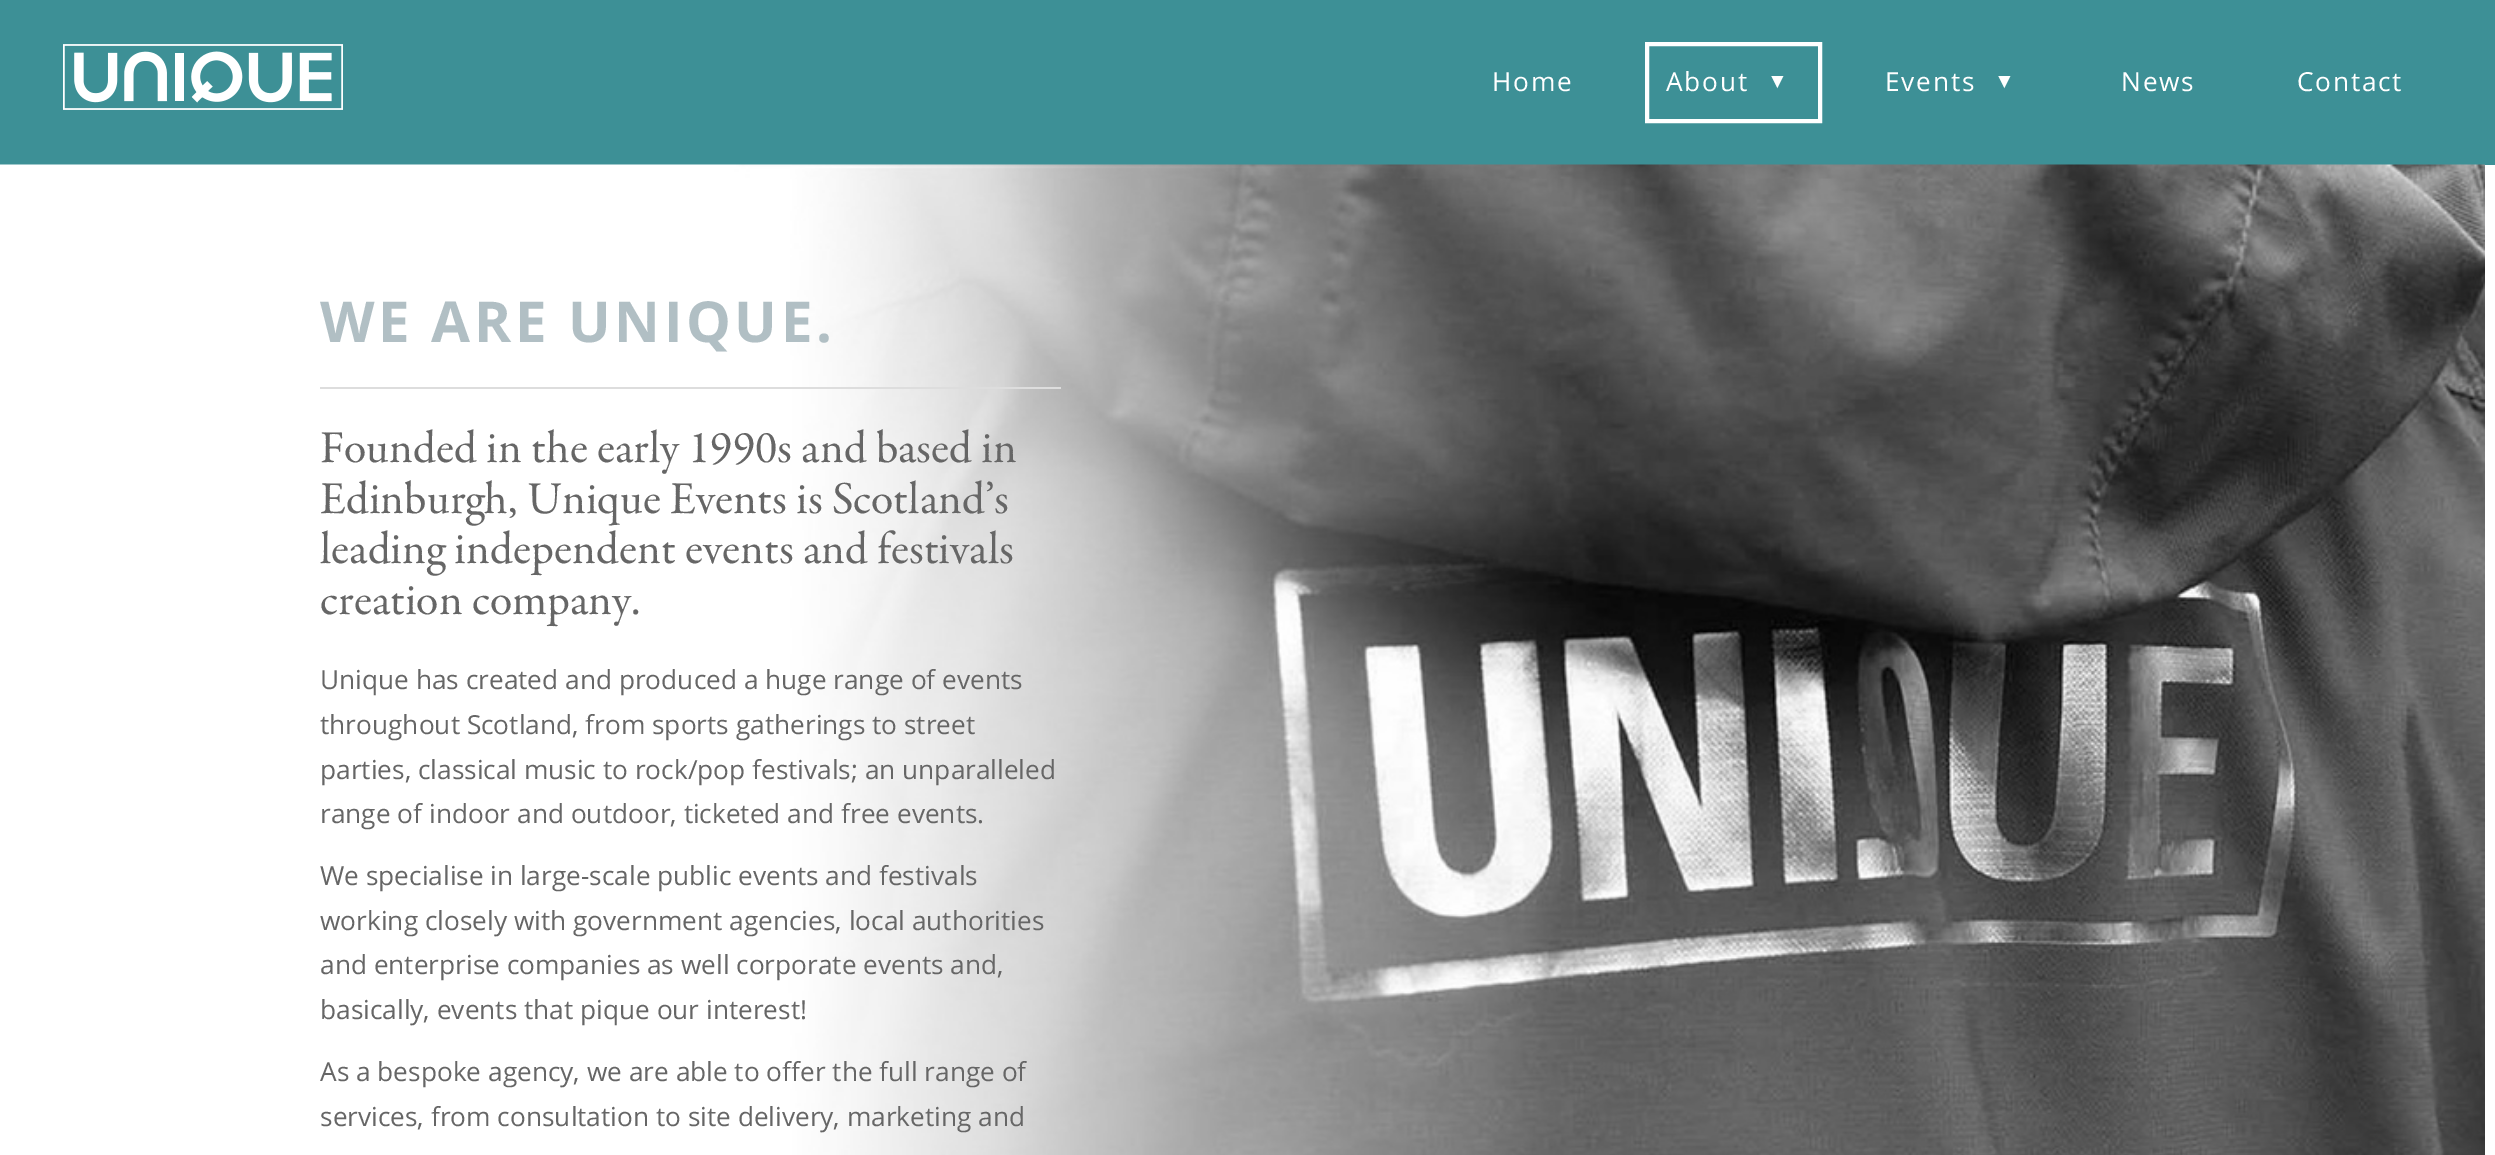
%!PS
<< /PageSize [2495 1155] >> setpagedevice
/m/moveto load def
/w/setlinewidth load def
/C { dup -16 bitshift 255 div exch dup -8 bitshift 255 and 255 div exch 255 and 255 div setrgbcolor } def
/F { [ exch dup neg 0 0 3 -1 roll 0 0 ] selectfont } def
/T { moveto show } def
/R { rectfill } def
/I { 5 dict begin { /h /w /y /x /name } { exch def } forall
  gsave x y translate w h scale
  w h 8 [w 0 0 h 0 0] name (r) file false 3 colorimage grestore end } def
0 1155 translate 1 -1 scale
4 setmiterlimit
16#FFFFFF C
0 0 2495 1155 R
16#3D9096 C
0 0 2495 165 R
(1.rgb) 63 44 280 66 I
/OpenSans-Regular 26.25 F
16#FFFFFF C
1492 91 m 1.75 0 (Home) ashow
4 w
1647 44 173 77 rectstroke
1666 91 m 1.75 0 (About) ashow
/LiberationSans-Italic 21 F
(▼) 1767 88 T
/OpenSans-Regular 26.25 F
1885 91 m 1.75 0 (Events) ashow
/LiberationSans-Italic 21 F
(▼) 1994 88 T
/OpenSans-Regular 26.25 F
2121 91 m 1.75 0 (News) ashow
2297 91 m 1.75 0 (Contact) ashow
(2.rgb) 0 164 2485 991 I
16#DDDDDD C
320 387 741 2 R
/OpenSans-Bold 56.5 F
16#B1BFC4 C
320 342 m 3.5 0 (WE ARE UNIQUE.) ashow
/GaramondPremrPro-Regular 46 F
16#666666 C
(Founded in the early 1990s and based in) 320 462 T
(Edinburgh, Unique Events is Scotland’s) 320 513 T
(leading independent events and festivals) 320 563 T
(creation company.) 320 614 T
/OpenSans-Regular 26.25 F
(Unique has created and produced a huge range of events) 320 689 T
(throughout Scotland, from sports gatherings to street) 320 734 T
(parties, classical music to rock/pop festivals; an unparalleled) 320 779 T
(range of indoor and outdoor, ticketed and free events.) 320 823 T
(We specialise in large-scale public events and festivals) 320 885 T
(working closely with government agencies, local authorities) 320 930 T
(and enterprise companies as well corporate events and,) 320 974 T
(basically, events that pique our interest!) 320 1019 T
(As a bespoke agency, we are able to offer the full range of) 320 1081 T
(services, from consultation to site delivery, marketing and) 320 1126 T
showpage
